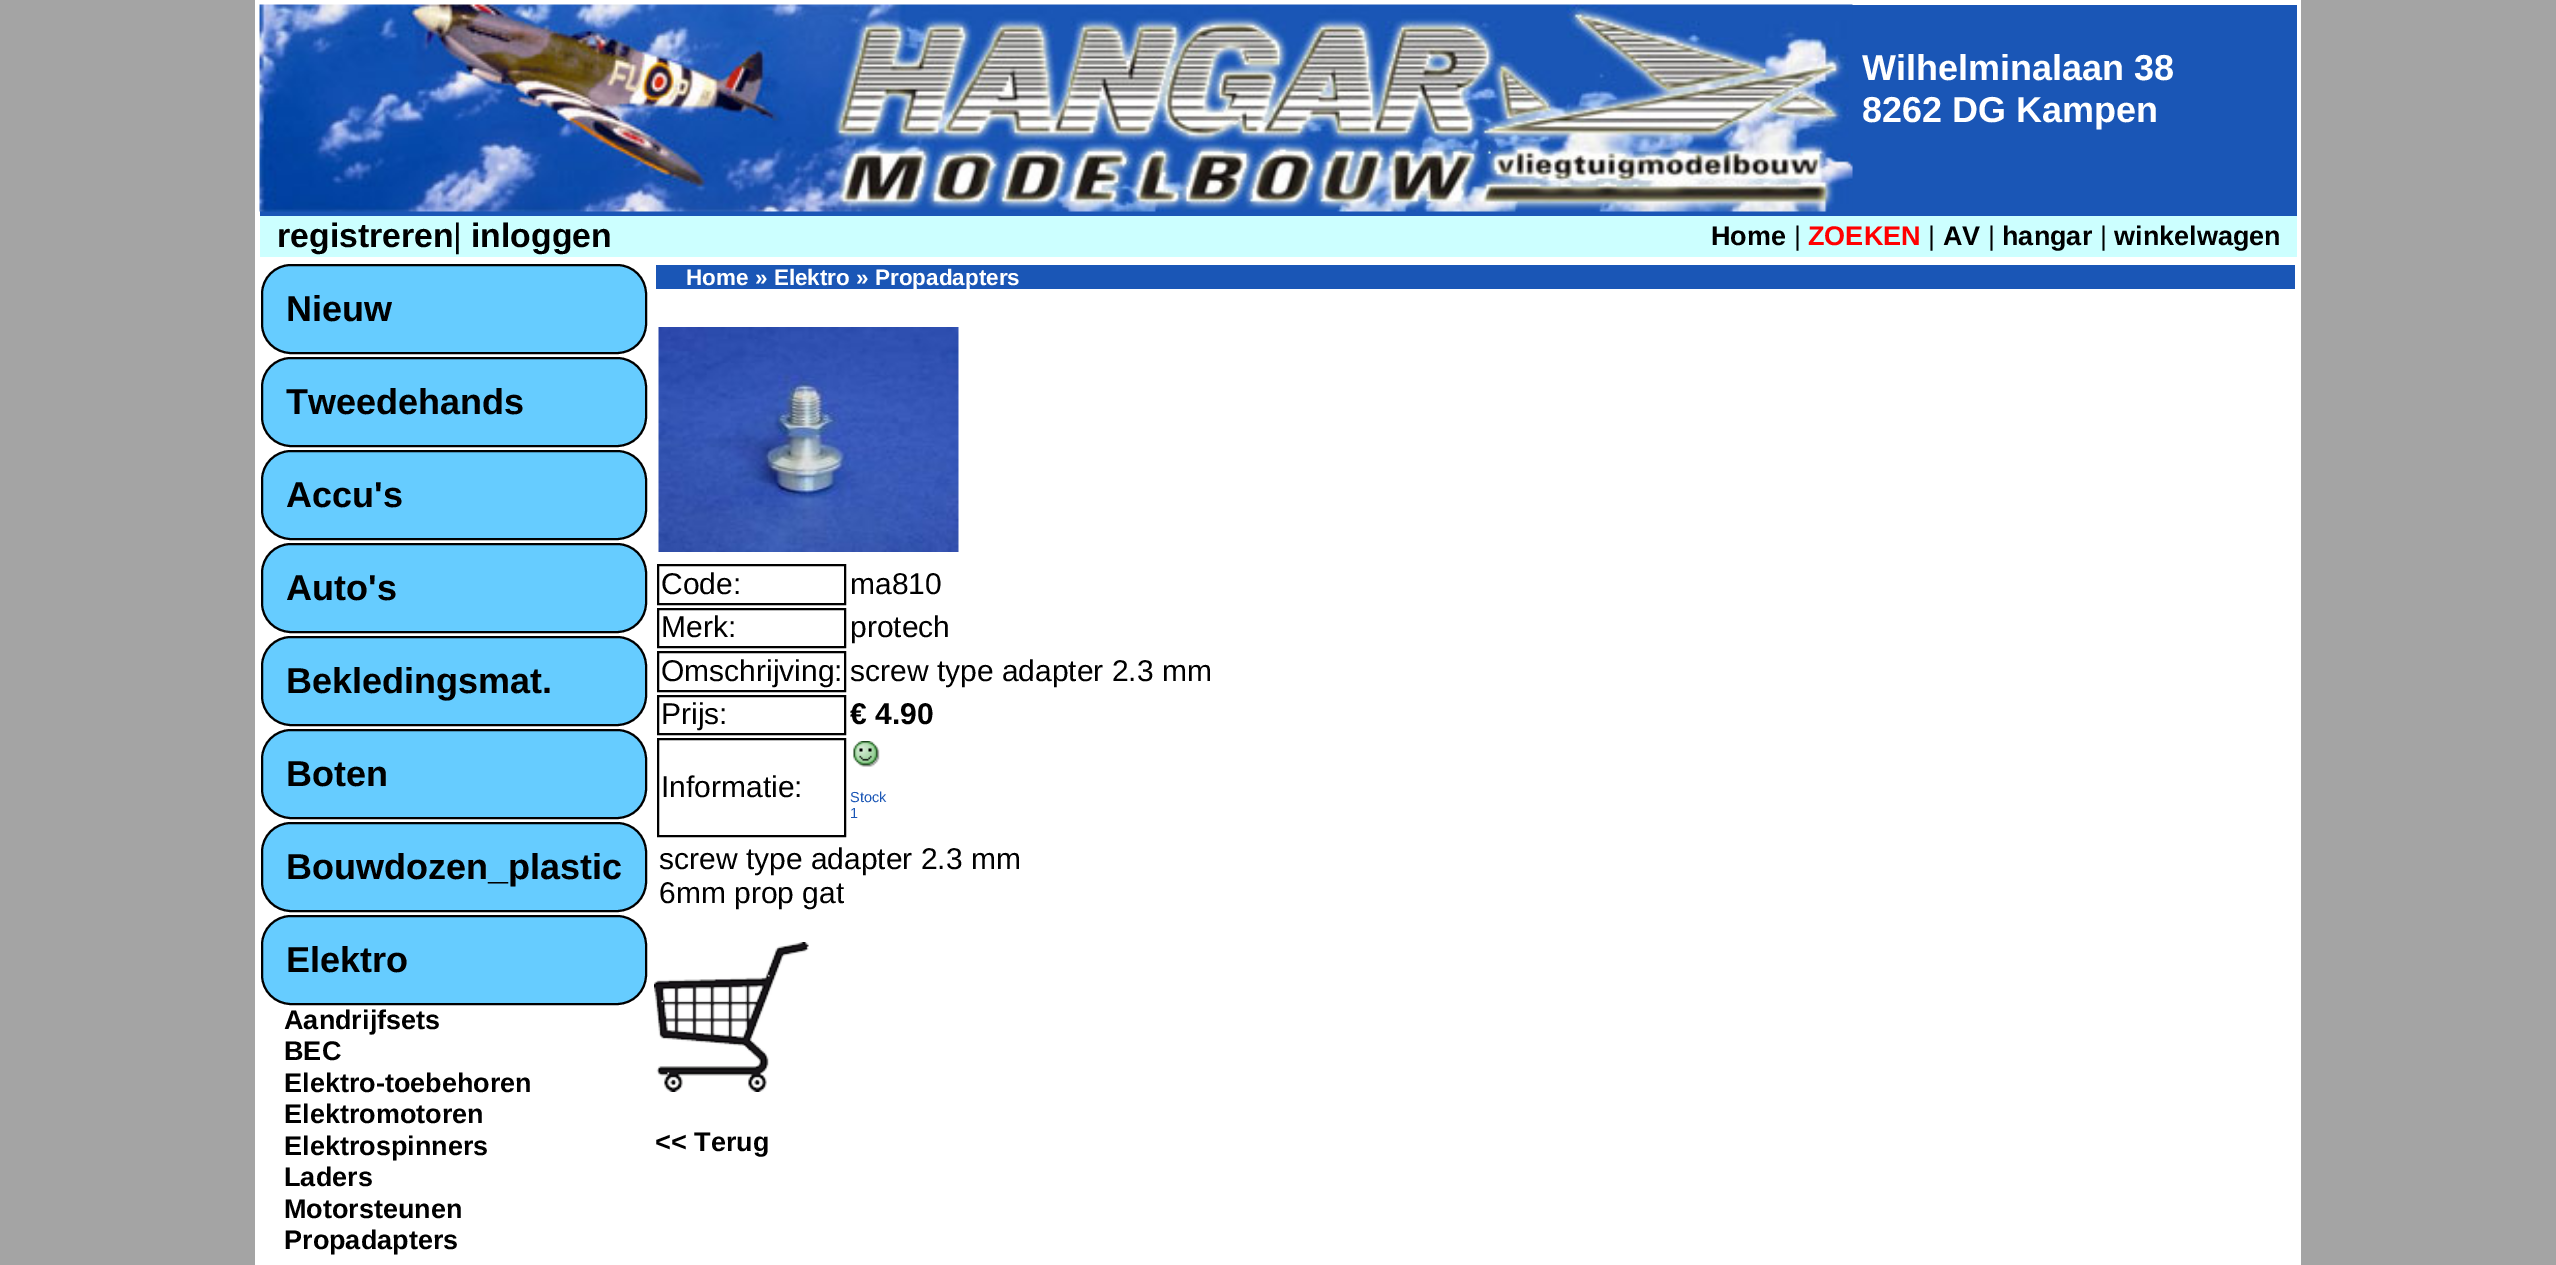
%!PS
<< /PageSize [2556 1265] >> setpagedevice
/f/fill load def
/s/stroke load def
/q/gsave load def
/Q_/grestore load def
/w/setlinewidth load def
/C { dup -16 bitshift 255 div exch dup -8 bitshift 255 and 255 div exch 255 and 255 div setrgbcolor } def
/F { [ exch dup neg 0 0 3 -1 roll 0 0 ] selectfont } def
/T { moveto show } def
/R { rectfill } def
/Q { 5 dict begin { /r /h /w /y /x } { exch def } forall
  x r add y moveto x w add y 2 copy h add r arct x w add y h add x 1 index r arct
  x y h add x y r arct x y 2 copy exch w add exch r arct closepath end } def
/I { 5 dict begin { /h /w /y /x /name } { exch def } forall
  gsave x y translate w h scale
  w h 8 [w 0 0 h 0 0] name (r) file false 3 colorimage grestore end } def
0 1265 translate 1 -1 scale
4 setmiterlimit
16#A4A4A4 C
0 0 2556 1265 R
16#FFFFFF C
255 0 2046 1265 R
16#1A56B6 C
260 5 2037 211 R
(1.rgb) 259 4 1594 208 I
/LiberationSans-Bold 36 F
16#FFFFFF C
(Wilhelminalaan 38) 1862 80 T
(8262 DG Kampen) 1862 122 T
16#CCFFFF C
260 216 2037 41 R
/LiberationSans-Bold 33.75 F
16#000000 C
(registreren) 277 247 T
/LiberationSans-Regular 33.75 F
(|) 453 247 T
/LiberationSans-Bold 33.75 F
(inloggen) 471 247 T
/LiberationSans-Bold 27 F
(Home) 1711 245 T
/LiberationSans-Regular 27 F
(|) 1794 245 T
/LiberationSans-Bold 27 F
16#FF0000 C
(ZOEKEN) 1808 245 T
/LiberationSans-Regular 27 F
16#000000 C
(|) 1928 245 T
/LiberationSans-Bold 27 F
(AV) 1943 245 T
/LiberationSans-Regular 27 F
(|) 1988 245 T
/LiberationSans-Bold 27 F
(hangar) 2002 245 T
/LiberationSans-Regular 27 F
(|) 2100 245 T
/LiberationSans-Bold 27 F
(winkelwagen) 2114 245 T
16#66CCFF C
262 265 384 88 29 Q q f Q_
16#000000 C
2 w
s
/LiberationSans-Bold 36 F
(Nieuw) 286 321 T
16#66CCFF C
262 358 384 88 29 Q q f Q_
16#000000 C
s
(Tweedehands) 286 414 T
16#66CCFF C
262 451 384 88 29 Q q f Q_
16#000000 C
s
(Accu's) 286 507 T
16#66CCFF C
262 544 384 88 29 Q q f Q_
16#000000 C
s
(Auto's) 286 600 T
16#66CCFF C
262 637 384 88 29 Q q f Q_
16#000000 C
s
(Bekledingsmat.) 286 693 T
16#66CCFF C
262 730 384 88 29 Q q f Q_
16#000000 C
s
(Boten) 286 786 T
16#66CCFF C
262 823 384 88 29 Q q f Q_
16#000000 C
s
(Bouwdozen_plastic) 286 879 T
16#66CCFF C
262 916 384 88 29 Q q f Q_
16#000000 C
s
(Elektro) 286 972 T
/LiberationSans-Bold 27 F
(Aandrijfsets) 284 1029 T
(BEC) 284 1060 T
(Elektro-toebehoren) 284 1092 T
(Elektromotoren) 284 1123 T
(Elektrospinners) 284 1155 T
(Laders) 284 1186 T
(Motorsteunen) 284 1218 T
(Propadapters) 284 1249 T
16#1A56B6 C
656 265 1639 24 R
/LiberationSans-Bold 22.5 F
16#FFFFFF C
(Home » Elektro » Propadapters) 686 285 T
(2.rgb) 658 327 301 225 I
16#000000 C
658 565 187 39 rectstroke
/LiberationSans-Regular 30 F
(Code:) 661 594 T
(ma810) 850 594 T
658 609 187 38 rectstroke
(Merk:) 661 637 T
(protech) 850 637 T
658 652 187 39 rectstroke
(Omschrijving:) 661 681 T
(screw type adapter 2.3 mm) 850 681 T
658 696 187 38 rectstroke
(Prijs:) 661 724 T
/LiberationSans-Bold 30 F
(€ 4.90) 850 724 T
658 739 187 97 rectstroke
/LiberationSans-Regular 30 F
(Informatie:) 661 797 T
(3.rgb) 853 741 27 26 I
/LiberationSans-Regular 14.5 F
16#1A56B6 C
(Stock) 850 802 T
(1) 850 818 T
/LiberationSans-Regular 30 F
16#000000 C
(screw type adapter 2.3 mm) 659 869 T
(6mm prop gat) 659 903 T
(4.rgb) 654 942 155 150 I
/LiberationSans-Bold 27 F
(<< Terug) 655 1151 T
showpage
